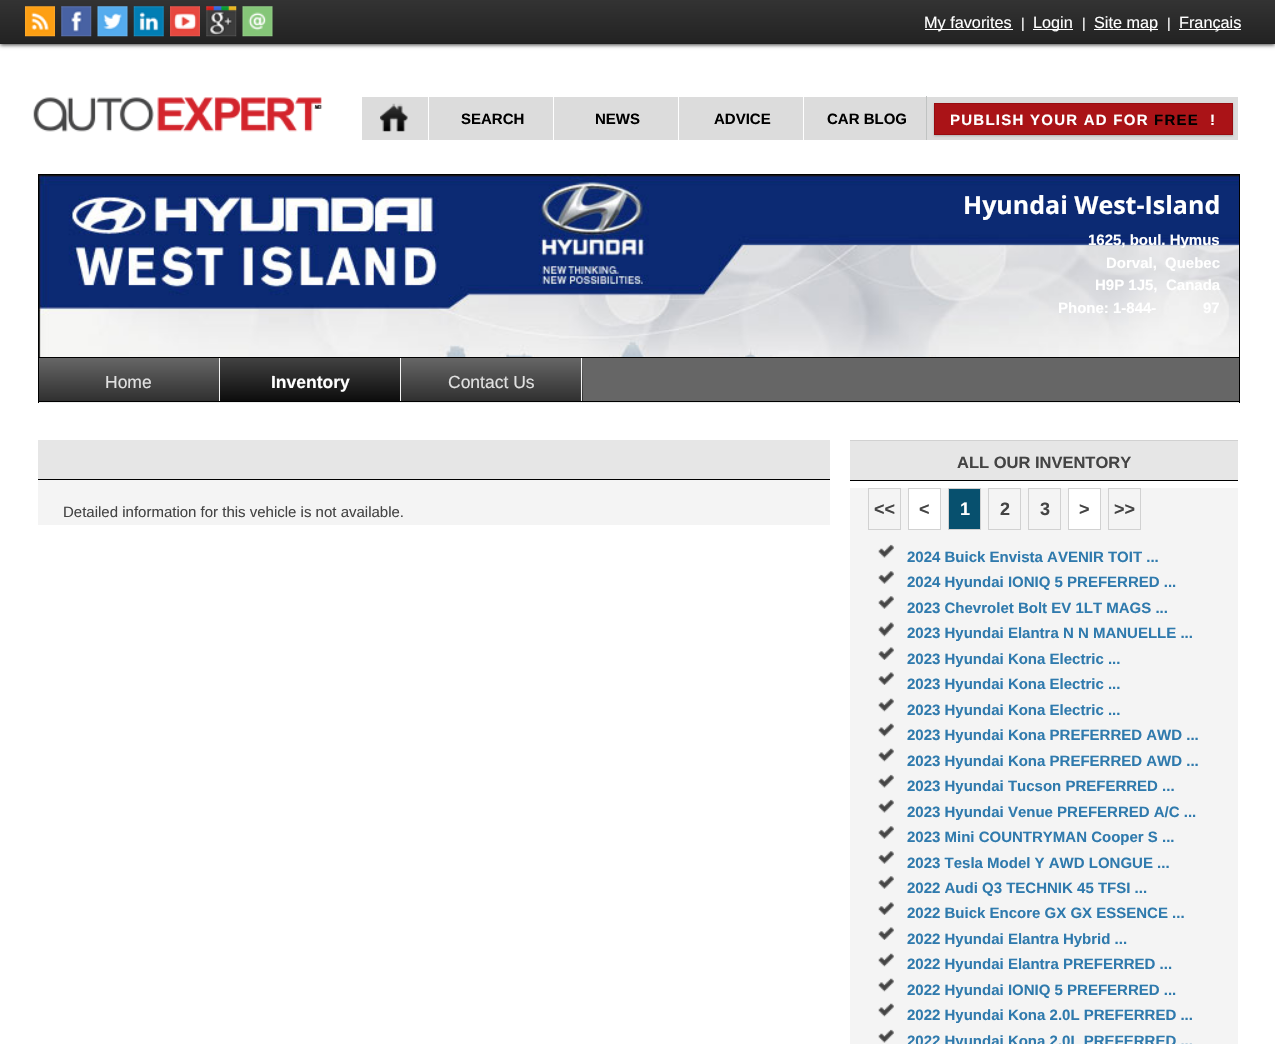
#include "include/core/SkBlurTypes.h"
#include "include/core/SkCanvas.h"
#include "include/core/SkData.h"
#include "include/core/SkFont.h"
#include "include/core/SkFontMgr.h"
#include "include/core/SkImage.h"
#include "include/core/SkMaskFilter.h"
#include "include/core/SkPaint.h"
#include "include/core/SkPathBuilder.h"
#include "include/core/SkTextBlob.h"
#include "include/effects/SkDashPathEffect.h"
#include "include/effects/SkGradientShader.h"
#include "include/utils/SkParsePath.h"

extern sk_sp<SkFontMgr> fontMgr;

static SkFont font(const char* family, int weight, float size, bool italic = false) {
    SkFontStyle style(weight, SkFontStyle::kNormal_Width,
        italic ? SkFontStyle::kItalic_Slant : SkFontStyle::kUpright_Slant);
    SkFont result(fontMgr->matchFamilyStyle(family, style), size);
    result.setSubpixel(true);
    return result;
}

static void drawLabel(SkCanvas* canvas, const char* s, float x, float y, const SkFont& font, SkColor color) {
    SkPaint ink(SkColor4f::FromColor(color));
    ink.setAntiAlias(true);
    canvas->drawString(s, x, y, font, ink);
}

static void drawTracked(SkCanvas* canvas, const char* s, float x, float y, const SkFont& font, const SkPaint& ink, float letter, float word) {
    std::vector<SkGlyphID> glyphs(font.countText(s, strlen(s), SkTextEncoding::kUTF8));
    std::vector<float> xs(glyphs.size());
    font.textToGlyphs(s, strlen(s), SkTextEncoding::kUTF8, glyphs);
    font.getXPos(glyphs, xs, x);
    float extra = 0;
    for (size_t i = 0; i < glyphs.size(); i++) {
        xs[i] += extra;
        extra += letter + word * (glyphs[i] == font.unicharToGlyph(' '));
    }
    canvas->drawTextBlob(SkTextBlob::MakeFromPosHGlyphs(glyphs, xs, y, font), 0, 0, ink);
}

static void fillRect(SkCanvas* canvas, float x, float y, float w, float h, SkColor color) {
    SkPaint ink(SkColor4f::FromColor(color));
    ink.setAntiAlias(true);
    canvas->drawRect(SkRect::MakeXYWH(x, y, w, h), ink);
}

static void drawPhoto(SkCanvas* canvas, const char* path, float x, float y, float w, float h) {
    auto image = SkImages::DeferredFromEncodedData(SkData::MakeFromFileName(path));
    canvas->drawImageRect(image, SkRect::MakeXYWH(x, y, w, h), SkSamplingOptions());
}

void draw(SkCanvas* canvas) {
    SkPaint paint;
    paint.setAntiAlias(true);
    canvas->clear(0xFFFFFFFF);
    paint.setColor(0xBF000000);
    paint.setMaskFilter(SkMaskFilter::MakeBlur(kNormal_SkBlurStyle, 2));
    canvas->drawRect(SkRect::MakeXYWH(0, 1, 1275, 44), paint);
    paint.setMaskFilter(nullptr);
    {
        const SkColor colors[] = {0xFF333333, 0xFF222222};
        const float stops[] = {0, 1};
        const SkPoint ends[] = {{638, 0}, {638, 44}};
        paint.setShader(SkGradientShader::MakeLinear(ends, colors, stops, 2, SkTileMode::kClamp));
        paint.setAlpha(255);
    }
    canvas->drawRect(SkRect::MakeXYWH(0, 0, 1275, 43), paint);
    fillRect(canvas, 0, 43, 1275, 1, 0xFF1F1F1F);
    drawPhoto(canvas, "assets/img1.png", 25, 6, 30, 31);
    drawPhoto(canvas, "assets/img2.png", 61, 6, 31, 31);
    drawPhoto(canvas, "assets/img3.png", 97, 6, 31, 31);
    drawPhoto(canvas, "assets/img4.png", 133, 6, 31, 31);
    drawPhoto(canvas, "assets/img5.png", 170, 6, 30, 31);
    drawPhoto(canvas, "assets/img6.png", 206, 6, 31, 31);
    drawPhoto(canvas, "assets/img7.png", 242, 6, 31, 31);
    fillRect(canvas, 925, 29, 88, 1, 0xFFFFFFFF);
    SkFont font1 = font("Liberation Sans", 400, 16.25f);
    drawLabel(canvas, "My favorites", 924, 28, font1, 0xFFFFFFFF);
    SkFont font2 = font("Liberation Sans", 400, 14);
    drawLabel(canvas, "|", 1021, 28, font2, 0xFFFFFFFF);
    fillRect(canvas, 1033, 29, 40, 1, 0xFFFFFFFF);
    drawLabel(canvas, "Login", 1033, 28, font1, 0xFFFFFFFF);
    drawLabel(canvas, "|", 1082, 28, font2, 0xFFFFFFFF);
    fillRect(canvas, 1094, 29, 64, 1, 0xFFFFFFFF);
    drawLabel(canvas, "Site map", 1094, 28, font1, 0xFFFFFFFF);
    drawLabel(canvas, "|", 1167, 28, font2, 0xFFFFFFFF);
    fillRect(canvas, 1179, 29, 62, 1, 0xFFFFFFFF);
    drawLabel(canvas, "Français", 1179, 28, font1, 0xFFFFFFFF);
    drawPhoto(canvas, "assets/img8.png", 33, 97, 290, 35);
    fillRect(canvas, 362, 97, 876, 43, 0xFFDCDCDC);
    drawPhoto(canvas, "assets/img9.png", 380, 103, 28, 29);
    fillRect(canvas, 428, 96, 1, 44, 0xFFFFFFFF);
    SkFont font3 = font("Liberation Sans", 700, 15);
    drawLabel(canvas, "SEARCH", 461, 124, font3, 0xFF000000);
    fillRect(canvas, 553, 96, 1, 44, 0xFFFFFFFF);
    drawLabel(canvas, "NEWS", 595, 124, font3, 0xFF000000);
    fillRect(canvas, 678, 96, 1, 44, 0xFFFFFFFF);
    drawLabel(canvas, "ADVICE", 714, 124, font3, 0xFF000000);
    fillRect(canvas, 926, 96, 1, 44, 0xFFC0C3C2);
    fillRect(canvas, 803, 96, 1, 44, 0xFFFFFFFF);
    drawLabel(canvas, "CAR BLOG", 827, 124, font3, 0xFF000000);
    paint.setShader(nullptr);
    paint.setColor(0x33000000);
    paint.setMaskFilter(SkMaskFilter::MakeBlur(kNormal_SkBlurStyle, 1));
    canvas->drawRect(SkRect::MakeXYWH(934, 104, 299, 32), paint);
    paint.setMaskFilter(nullptr);
    paint.setColor(0xFFAA1317);
    canvas->drawRect(SkRect::MakeXYWH(934.5f, 103.5f, 298, 31), paint);
    paint.setStroke(true);
    paint.setStrokeWidth(1);
    paint.setColor(0xFF980C10);
    canvas->drawRect(SkRect::MakeXYWH(934.5f, 103.5f, 298, 31), paint);
    paint.setStroke(false);
    paint.setColor(0xFFFFFFFF);
    drawTracked(canvas, "PUBLISH YOUR AD FOR", 950, 125, font3, paint, 1.25f, 0);
    paint.setColor(0xFF000000);
    drawTracked(canvas, "FREE", 1154, 125, font3, paint, 1.25f, 0);
    paint.setColor(0xFFFFFFFF);
    drawTracked(canvas, "!", 1210, 125, font3, paint, 1.25f, 0);
    drawPhoto(canvas, "assets/img10.png", 39, 175, 1200, 182);
    paint.setStroke(true);
    paint.setColor(0xFF000000);
    canvas->drawRect(SkRect::MakeXYWH(38.5f, 174.5f, 1201, 183), paint);
    SkFont font4 = font("Open Sans", 700, 25);
    drawLabel(canvas, "Hyundai West-Island", 963, 214, font4, 0xFFFFFFFF);
    drawLabel(canvas, "1625, boul. Hymus", 1088, 245, font3, 0xFFFFFFFF);
    drawLabel(canvas, "Dorval,", 1106, 268, font3, 0xFFFFFFFF);
    drawLabel(canvas, "Quebec", 1165, 268, font3, 0xFFFFFFFF);
    drawLabel(canvas, "H9P 1J5,", 1095, 290, font3, 0xFFFFFFFF);
    drawLabel(canvas, "Canada", 1166, 290, font3, 0xFFFFFFFF);
    drawLabel(canvas, "Phone: 1-844-", 1058, 313, font3, 0xFFFFFFFF);
    drawLabel(canvas, "97", 1203, 313, font3, 0xFFFFFFFF);
    fillRect(canvas, 39, 402, 1200, 1, 0xFFEBEDEC);
    fillRect(canvas, 1239, 358, 1, 45, 0xFF000000);
    fillRect(canvas, 38, 401, 1202, 1, 0xFF000000);
    fillRect(canvas, 38, 358, 1, 45, 0xFF000000);
    fillRect(canvas, 583, 358, 656, 43, 0xFF666666);
    paint.setStroke(false);
    {
        const SkColor colors[] = {0xFF666666, 0xFF000000};
        const float stops[] = {0, 1};
        const SkPoint ends[] = {{39, 358}, {39, 439}};
        paint.setShader(SkGradientShader::MakeLinear(ends, colors, stops, 2, SkTileMode::kClamp));
        paint.setAlpha(255);
    }
    canvas->drawRect(SkRect::MakeXYWH(39, 358, 180, 43), paint);
    fillRect(canvas, 219, 358, 1, 43, 0xFFF3F3F3);
    SkFont font5 = font("Liberation Sans", 400, 17.5f);
    drawLabel(canvas, "Home", 105, 388, font5, 0xFFE0E0E0);
    {
        const SkColor colors[] = {0xFF666666, 0xFF000000};
        const float stops[] = {0, 1};
        const SkPoint ends[] = {{264, 329}, {264, 411}};
        paint.setShader(SkGradientShader::MakeLinear(ends, colors, stops, 2, SkTileMode::kClamp));
        paint.setAlpha(255);
    }
    canvas->drawRect(SkRect::MakeXYWH(220, 358, 180, 43), paint);
    fillRect(canvas, 400, 358, 1, 43, 0xFFF3F3F3);
    SkFont font6 = font("Liberation Sans", 700, 17.5f);
    drawLabel(canvas, "Inventory", 271, 388, font6, 0xFFFFFFFF);
    {
        const SkColor colors[] = {0xFF666666, 0xFF000000};
        const float stops[] = {0, 1};
        const SkPoint ends[] = {{402, 358}, {402, 439}};
        paint.setShader(SkGradientShader::MakeLinear(ends, colors, stops, 2, SkTileMode::kClamp));
        paint.setAlpha(255);
    }
    canvas->drawRect(SkRect::MakeXYWH(401, 358, 182, 43), paint);
    fillRect(canvas, 581, 358, 1, 43, 0xFFF3F3F3);
    drawLabel(canvas, "Contact Us", 448, 388, font5, 0xFFE0E0E0);
    fillRect(canvas, 38, 440, 792, 39, 0xFFE6E6E6);
    fillRect(canvas, 38, 479, 792, 1, 0xFF000000);
    fillRect(canvas, 38, 480, 792, 45, 0xFFF4F4F4);
    SkFont font7 = font("Liberation Sans", 400, 15);
    drawLabel(canvas, "Detailed information for this vehicle is not available.", 63, 517, font7, 0xFF444444);
    fillRect(canvas, 850, 441, 388, 39, 0xFFE6E6E6);
    fillRect(canvas, 850, 440, 388, 1, 0xFFD1D1D1);
    fillRect(canvas, 850, 480, 388, 1, 0xFF000000);
    SkFont font8 = font("Liberation Sans", 700, 16.5f);
    drawLabel(canvas, "ALL OUR INVENTORY", 957, 468, font8, 0xFF444444);
    fillRect(canvas, 850, 488, 388, 556, 0xFFF4F4F4);
    paint.setStroke(true);
    paint.setShader(nullptr);
    paint.setColor(0xFFD1D1D1);
    canvas->drawRect(SkRect::MakeXYWH(868.5f, 488.5f, 32, 41), paint);
    SkFont font9 = font("Liberation Sans", 700, 18);
    drawLabel(canvas, "<<", 874, 515, font9, 0xFF444444);
    paint.setStroke(false);
    paint.setColor(0xFFFFFFFF);
    canvas->drawRect(SkRect::MakeXYWH(908.5f, 488.5f, 32, 41), paint);
    paint.setStroke(true);
    paint.setColor(0xFFD1D1D1);
    canvas->drawRect(SkRect::MakeXYWH(908.5f, 488.5f, 32, 41), paint);
    drawLabel(canvas, "<", 919, 515, font9, 0xFF444444);
    paint.setStroke(false);
    paint.setColor(0xFF07506E);
    canvas->drawRect(SkRect::MakeXYWH(948.5f, 488.5f, 32, 41), paint);
    paint.setStroke(true);
    paint.setColor(0xFFD1D1D1);
    canvas->drawRect(SkRect::MakeXYWH(948.5f, 488.5f, 32, 41), paint);
    drawLabel(canvas, "1", 960, 515, font9, 0xFFFFFFFF);
    canvas->drawRect(SkRect::MakeXYWH(988.5f, 488.5f, 32, 41), paint);
    drawLabel(canvas, "2", 1000, 515, font9, 0xFF444444);
    canvas->drawRect(SkRect::MakeXYWH(1028.5f, 488.5f, 32, 41), paint);
    drawLabel(canvas, "3", 1040, 515, font9, 0xFF444444);
    paint.setStroke(false);
    paint.setColor(0xFFFFFFFF);
    canvas->drawRect(SkRect::MakeXYWH(1068.5f, 488.5f, 32, 41), paint);
    paint.setStroke(true);
    paint.setColor(0xFFD1D1D1);
    canvas->drawRect(SkRect::MakeXYWH(1068.5f, 488.5f, 32, 41), paint);
    drawLabel(canvas, ">", 1079, 515, font9, 0xFF444444);
    canvas->drawRect(SkRect::MakeXYWH(1108.5f, 488.5f, 32, 41), paint);
    drawLabel(canvas, ">>", 1114, 515, font9, 0xFF444444);
    drawPhoto(canvas, "assets/img11.png", 878, 544, 16, 14);
    drawLabel(canvas, "2024 Buick Envista AVENIR TOIT ...", 907, 562, font3, 0xFF2F7AAD);
    drawPhoto(canvas, "assets/img12.png", 878, 571, 16, 13);
    drawLabel(canvas, "2024 Hyundai IONIQ 5 PREFERRED ...", 907, 587, font3, 0xFF2F7AAD);
    drawPhoto(canvas, "assets/img12.png", 878, 596, 16, 13);
    drawLabel(canvas, "2023 Chevrolet Bolt EV 1LT MAGS ...", 907, 613, font3, 0xFF2F7AAD);
    drawPhoto(canvas, "assets/img13.png", 878, 622, 16, 15);
    drawLabel(canvas, "2023 Hyundai Elantra N N MANUELLE ...", 907, 638, font3, 0xFF2F7AAD);
    drawPhoto(canvas, "assets/img14.png", 878, 647, 16, 13);
    drawLabel(canvas, "2023 Hyundai Kona Electric ...", 907, 664, font3, 0xFF2F7AAD);
    drawPhoto(canvas, "assets/img14.png", 878, 672, 16, 13);
    drawLabel(canvas, "2023 Hyundai Kona Electric ...", 907, 689, font3, 0xFF2F7AAD);
    drawPhoto(canvas, "assets/img15.png", 878, 698, 16, 14);
    drawLabel(canvas, "2023 Hyundai Kona Electric ...", 907, 715, font3, 0xFF2F7AAD);
    drawPhoto(canvas, "assets/img15.png", 878, 723, 16, 14);
    drawLabel(canvas, "2023 Hyundai Kona PREFERRED AWD ...", 907, 740, font3, 0xFF2F7AAD);
    drawPhoto(canvas, "assets/img15.png", 878, 748, 16, 14);
    drawLabel(canvas, "2023 Hyundai Kona PREFERRED AWD ...", 907, 766, font3, 0xFF2F7AAD);
    drawPhoto(canvas, "assets/img16.png", 878, 774, 16, 14);
    drawLabel(canvas, "2023 Hyundai Tucson PREFERRED ...", 907, 791, font3, 0xFF2F7AAD);
    drawPhoto(canvas, "assets/img11.png", 878, 799, 16, 14);
    drawLabel(canvas, "2023 Hyundai Venue PREFERRED A/C ...", 907, 817, font3, 0xFF2F7AAD);
    drawPhoto(canvas, "assets/img12.png", 878, 826, 16, 13);
    drawLabel(canvas, "2023 Mini COUNTRYMAN Cooper S ...", 907, 842, font3, 0xFF2F7AAD);
    drawPhoto(canvas, "assets/img12.png", 878, 851, 16, 13);
    drawLabel(canvas, "2023 Tesla Model Y AWD LONGUE ...", 907, 868, font3, 0xFF2F7AAD);
    drawPhoto(canvas, "assets/img12.png", 878, 876, 16, 13);
    drawLabel(canvas, "2022 Audi Q3 TECHNIK 45 TFSI ...", 907, 893, font3, 0xFF2F7AAD);
    drawPhoto(canvas, "assets/img14.png", 878, 902, 16, 13);
    drawLabel(canvas, "2022 Buick Encore GX GX ESSENCE ...", 907, 918, font3, 0xFF2F7AAD);
    drawPhoto(canvas, "assets/img14.png", 878, 927, 16, 13);
    drawLabel(canvas, "2022 Hyundai Elantra Hybrid ...", 907, 944, font3, 0xFF2F7AAD);
    drawPhoto(canvas, "assets/img15.png", 878, 953, 16, 14);
    drawLabel(canvas, "2022 Hyundai Elantra PREFERRED ...", 907, 969, font3, 0xFF2F7AAD);
    drawPhoto(canvas, "assets/img15.png", 878, 978, 16, 14);
    drawLabel(canvas, "2022 Hyundai IONIQ 5 PREFERRED ...", 907, 995, font3, 0xFF2F7AAD);
    drawPhoto(canvas, "assets/img15.png", 878, 1003, 16, 14);
    drawLabel(canvas, "2022 Hyundai Kona 2.0L PREFERRED ...", 907, 1020, font3, 0xFF2F7AAD);
    drawPhoto(canvas, "assets/img11.png", 878, 1029, 16, 14);
    drawLabel(canvas, "2022 Hyundai Kona 2.0L PREFERRED ...", 907, 1046, font3, 0xFF2F7AAD);
}
